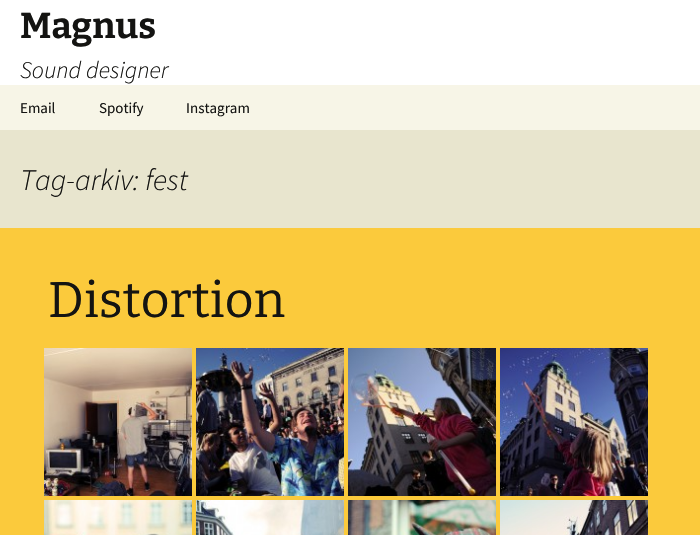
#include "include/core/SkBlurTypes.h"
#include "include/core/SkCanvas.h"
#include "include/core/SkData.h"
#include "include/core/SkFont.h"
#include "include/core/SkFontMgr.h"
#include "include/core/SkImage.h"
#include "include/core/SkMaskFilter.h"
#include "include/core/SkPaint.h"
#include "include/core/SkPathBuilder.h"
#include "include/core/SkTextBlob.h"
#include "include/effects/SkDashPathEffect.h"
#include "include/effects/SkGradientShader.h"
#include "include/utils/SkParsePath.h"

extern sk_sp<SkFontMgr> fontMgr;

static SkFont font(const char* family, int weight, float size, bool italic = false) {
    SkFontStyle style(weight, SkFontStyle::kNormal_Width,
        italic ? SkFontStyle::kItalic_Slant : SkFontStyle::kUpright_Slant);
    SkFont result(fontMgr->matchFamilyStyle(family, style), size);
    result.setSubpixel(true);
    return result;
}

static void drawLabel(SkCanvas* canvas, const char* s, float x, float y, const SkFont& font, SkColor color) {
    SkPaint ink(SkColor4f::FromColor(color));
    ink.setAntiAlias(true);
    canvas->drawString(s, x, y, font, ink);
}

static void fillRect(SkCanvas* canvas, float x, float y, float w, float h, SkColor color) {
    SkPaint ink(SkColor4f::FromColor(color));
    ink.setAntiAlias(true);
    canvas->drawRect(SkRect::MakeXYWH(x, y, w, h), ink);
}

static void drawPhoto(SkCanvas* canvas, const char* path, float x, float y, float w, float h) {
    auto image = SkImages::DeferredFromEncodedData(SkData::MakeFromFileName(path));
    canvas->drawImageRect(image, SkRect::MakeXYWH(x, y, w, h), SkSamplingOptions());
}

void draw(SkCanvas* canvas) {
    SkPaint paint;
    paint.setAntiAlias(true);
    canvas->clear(0xFFFFFFFF);
    SkFont font1 = font("Bitter", 700, 36);
    drawLabel(canvas, "Magnus", 20, 38, font1, 0xFF141412);
    SkFont font2 = font("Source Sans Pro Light", 300, 24, true);
    drawLabel(canvas, "Sound designer", 20, 78, font2, 0xFF141412);
    fillRect(canvas, 0, 85, 700, 45, 0xFFF7F5E7);
    SkFont font3 = font("Source Sans Pro", 400, 15);
    drawLabel(canvas, "Email", 20, 113, font3, 0xFF141412);
    drawLabel(canvas, "Spotify", 99, 113, font3, 0xFF141412);
    drawLabel(canvas, "Instagram", 186, 113, font3, 0xFF141412);
    fillRect(canvas, 0, 130, 700, 98, 0xFFE8E5CE);
    SkFont font4 = font("Source Sans Pro Light", 300, 30, true);
    drawLabel(canvas, "Tag-arkiv: fest", 20, 190, font4, 0xFF141412);
    fillRect(canvas, 0, 228, 700, 307, 0xFFFBCA3C);
    SkFont font5 = font("Bitter", 400, 50);
    drawLabel(canvas, "Distortion", 48, 317, font5, 0xFF141412);
    drawPhoto(canvas, "assets/img1.png", 44, 348, 148, 148);
    drawPhoto(canvas, "assets/img2.png", 196, 348, 148, 148);
    drawPhoto(canvas, "assets/img3.png", 348, 348, 148, 148);
    drawPhoto(canvas, "assets/img4.png", 500, 348, 148, 148);
    drawPhoto(canvas, "assets/img5.png", 44, 500, 148, 35);
    drawPhoto(canvas, "assets/img6.png", 196, 500, 148, 35);
    drawPhoto(canvas, "assets/img7.png", 348, 500, 148, 35);
    drawPhoto(canvas, "assets/img8.png", 500, 500, 148, 35);
}
